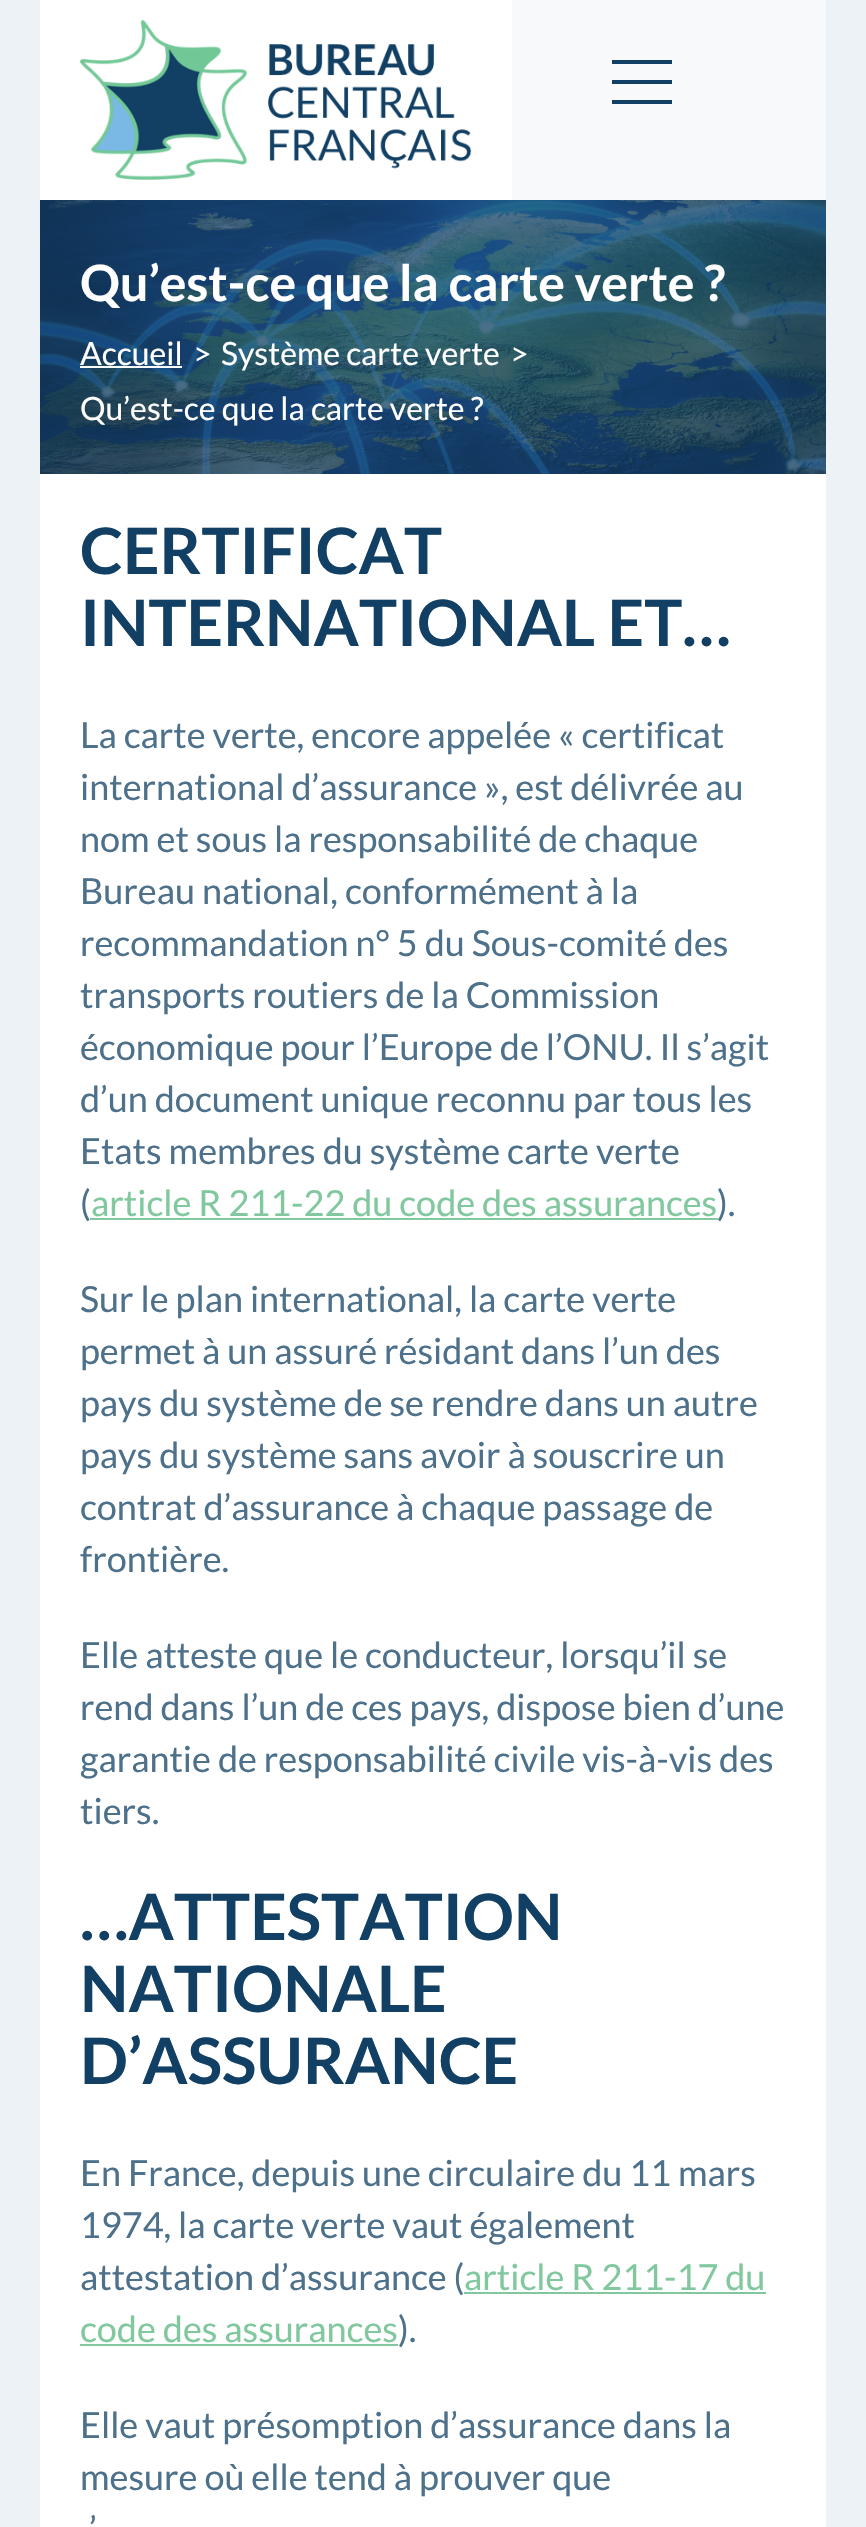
#include "include/core/SkBlurTypes.h"
#include "include/core/SkCanvas.h"
#include "include/core/SkData.h"
#include "include/core/SkFont.h"
#include "include/core/SkFontMgr.h"
#include "include/core/SkImage.h"
#include "include/core/SkMaskFilter.h"
#include "include/core/SkPaint.h"
#include "include/core/SkPathBuilder.h"
#include "include/core/SkTextBlob.h"
#include "include/effects/SkDashPathEffect.h"
#include "include/effects/SkGradientShader.h"
#include "include/utils/SkParsePath.h"

extern sk_sp<SkFontMgr> fontMgr;

static SkFont font(const char* family, int weight, float size, bool italic = false) {
    SkFontStyle style(weight, SkFontStyle::kNormal_Width,
        italic ? SkFontStyle::kItalic_Slant : SkFontStyle::kUpright_Slant);
    SkFont result(fontMgr->matchFamilyStyle(family, style), size);
    result.setSubpixel(true);
    return result;
}

static void drawLabel(SkCanvas* canvas, const char* s, float x, float y, const SkFont& font, SkColor color) {
    SkPaint ink(SkColor4f::FromColor(color));
    ink.setAntiAlias(true);
    canvas->drawString(s, x, y, font, ink);
}

static void fillRect(SkCanvas* canvas, float x, float y, float w, float h, SkColor color) {
    SkPaint ink(SkColor4f::FromColor(color));
    ink.setAntiAlias(true);
    canvas->drawRect(SkRect::MakeXYWH(x, y, w, h), ink);
}

static void drawPhoto(SkCanvas* canvas, const char* path, float x, float y, float w, float h) {
    auto image = SkImages::DeferredFromEncodedData(SkData::MakeFromFileName(path));
    canvas->drawImageRect(image, SkRect::MakeXYWH(x, y, w, h), SkSamplingOptions());
}

void draw(SkCanvas* canvas) {
    SkPaint paint;
    paint.setAntiAlias(true);
    canvas->clear(0xFFEDF2F6);
    fillRect(canvas, 40, 0, 472, 200, 0xFFFFFFFF);
    drawPhoto(canvas, "assets/img1.png", 80, 20, 392, 160);
    fillRect(canvas, 512, 0, 314, 200, 0xFFF7F9FB);
    fillRect(canvas, 612, 80, 60, 4, 0xFF124064);
    fillRect(canvas, 612, 60, 60, 4, 0xFF124064);
    fillRect(canvas, 612, 100, 60, 4, 0xFF124064);
    drawPhoto(canvas, "assets/img2.png", 40, 200, 786, 274);
    SkFont font1 = font("Lato", 700, 50);
    drawLabel(canvas, "Qu’est-ce que la carte verte ?", 80, 301, font1, 0xFFFFFFFF);
    SkFont font2 = font("Lato", 400, 32);
    drawLabel(canvas, "Accueil", 80, 365, font2, 0xFFFFFFFF);
    fillRect(canvas, 80, 366, 102, 2, 0xFFFFFFFF);
    drawLabel(canvas, ">", 193, 365, font2, 0xFFFFFFFF);
    drawLabel(canvas, "Système carte verte", 221, 365, font2, 0xFFFFFFFF);
    drawLabel(canvas, ">", 510, 365, font2, 0xFFFFFFFF);
    drawLabel(canvas, "Qu’est-ce que la carte verte ?", 80, 420, font2, 0xFFFFFFFF);
    fillRect(canvas, 40, 474, 786, 2053, 0xFFFFFFFF);
    SkFont font3 = font("Lato", 700, 64);
    drawLabel(canvas, "CERTIFICAT", 80, 574, font3, 0xFF124064);
    drawLabel(canvas, "INTERNATIONAL ET…", 80, 646, font3, 0xFF124064);
    SkFont font4 = font("Lato", 400, 36);
    drawLabel(canvas, "La carte verte, encore appelée « certificat", 80, 748, font4, 0xFF4D708B);
    drawLabel(canvas, "international d’assurance », est délivrée au", 80, 800, font4, 0xFF4D708B);
    drawLabel(canvas, "nom et sous la responsabilité de chaque", 80, 852, font4, 0xFF4D708B);
    drawLabel(canvas, "Bureau national, conformément à la", 80, 904, font4, 0xFF4D708B);
    drawLabel(canvas, "recommandation n° 5 du Sous-comité des", 80, 956, font4, 0xFF4D708B);
    drawLabel(canvas, "transports routiers de la Commission", 80, 1008, font4, 0xFF4D708B);
    drawLabel(canvas, "économique pour l’Europe de l’ONU. Il s’agit", 80, 1060, font4, 0xFF4D708B);
    drawLabel(canvas, "d’un document unique reconnu par tous les", 80, 1112, font4, 0xFF4D708B);
    drawLabel(canvas, "Etats membres du système carte verte", 80, 1164, font4, 0xFF4D708B);
    drawLabel(canvas, "(", 80, 1216, font4, 0xFF4D708B);
    drawLabel(canvas, "article R 211-22 du code des assurances", 91, 1216, font4, 0xFF81C89F);
    fillRect(canvas, 90, 1218, 628, 2, 0xFF81C89F);
    drawLabel(canvas, ").", 717, 1216, font4, 0xFF4D708B);
    drawLabel(canvas, "Sur le plan international, la carte verte", 80, 1312, font4, 0xFF4D708B);
    drawLabel(canvas, "permet à un assuré résidant dans l’un des", 80, 1364, font4, 0xFF4D708B);
    drawLabel(canvas, "pays du système de se rendre dans un autre", 80, 1416, font4, 0xFF4D708B);
    drawLabel(canvas, "pays du système sans avoir à souscrire un", 80, 1468, font4, 0xFF4D708B);
    drawLabel(canvas, "contrat d’assurance à chaque passage de", 80, 1520, font4, 0xFF4D708B);
    drawLabel(canvas, "frontière.", 80, 1572, font4, 0xFF4D708B);
    drawLabel(canvas, "Elle atteste que le conducteur, lorsqu’il se", 80, 1668, font4, 0xFF4D708B);
    drawLabel(canvas, "rend dans l’un de ces pays, dispose bien d’une", 80, 1720, font4, 0xFF4D708B);
    drawLabel(canvas, "garantie de responsabilité civile vis-à-vis des", 80, 1772, font4, 0xFF4D708B);
    drawLabel(canvas, "tiers.", 80, 1824, font4, 0xFF4D708B);
    drawLabel(canvas, "…ATTESTATION", 80, 1940, font3, 0xFF124064);
    drawLabel(canvas, "NATIONALE", 80, 2012, font3, 0xFF124064);
    drawLabel(canvas, "D’ASSURANCE", 80, 2084, font3, 0xFF124064);
    drawLabel(canvas, "En France, depuis une circulaire du 11 mars", 80, 2186, font4, 0xFF4D708B);
    drawLabel(canvas, "1974, la carte verte vaut également", 80, 2238, font4, 0xFF4D708B);
    drawLabel(canvas, "attestation d’assurance (", 80, 2290, font4, 0xFF4D708B);
    drawLabel(canvas, "article R 211-17 du", 464, 2290, font4, 0xFF81C89F);
    fillRect(canvas, 464, 2292, 302, 2, 0xFF81C89F);
    drawLabel(canvas, "code des assurances", 80, 2342, font4, 0xFF81C89F);
    fillRect(canvas, 80, 2344, 318, 2, 0xFF81C89F);
    drawLabel(canvas, ").", 398, 2342, font4, 0xFF4D708B);
    drawLabel(canvas, "Elle vaut présomption d’assurance dans la", 80, 2438, font4, 0xFF4D708B);
    drawLabel(canvas, "mesure où elle tend à prouver que", 80, 2490, font4, 0xFF4D708B);
    drawLabel(canvas, "’", 89, 2542, font4, 0xFF4D708B);
}
